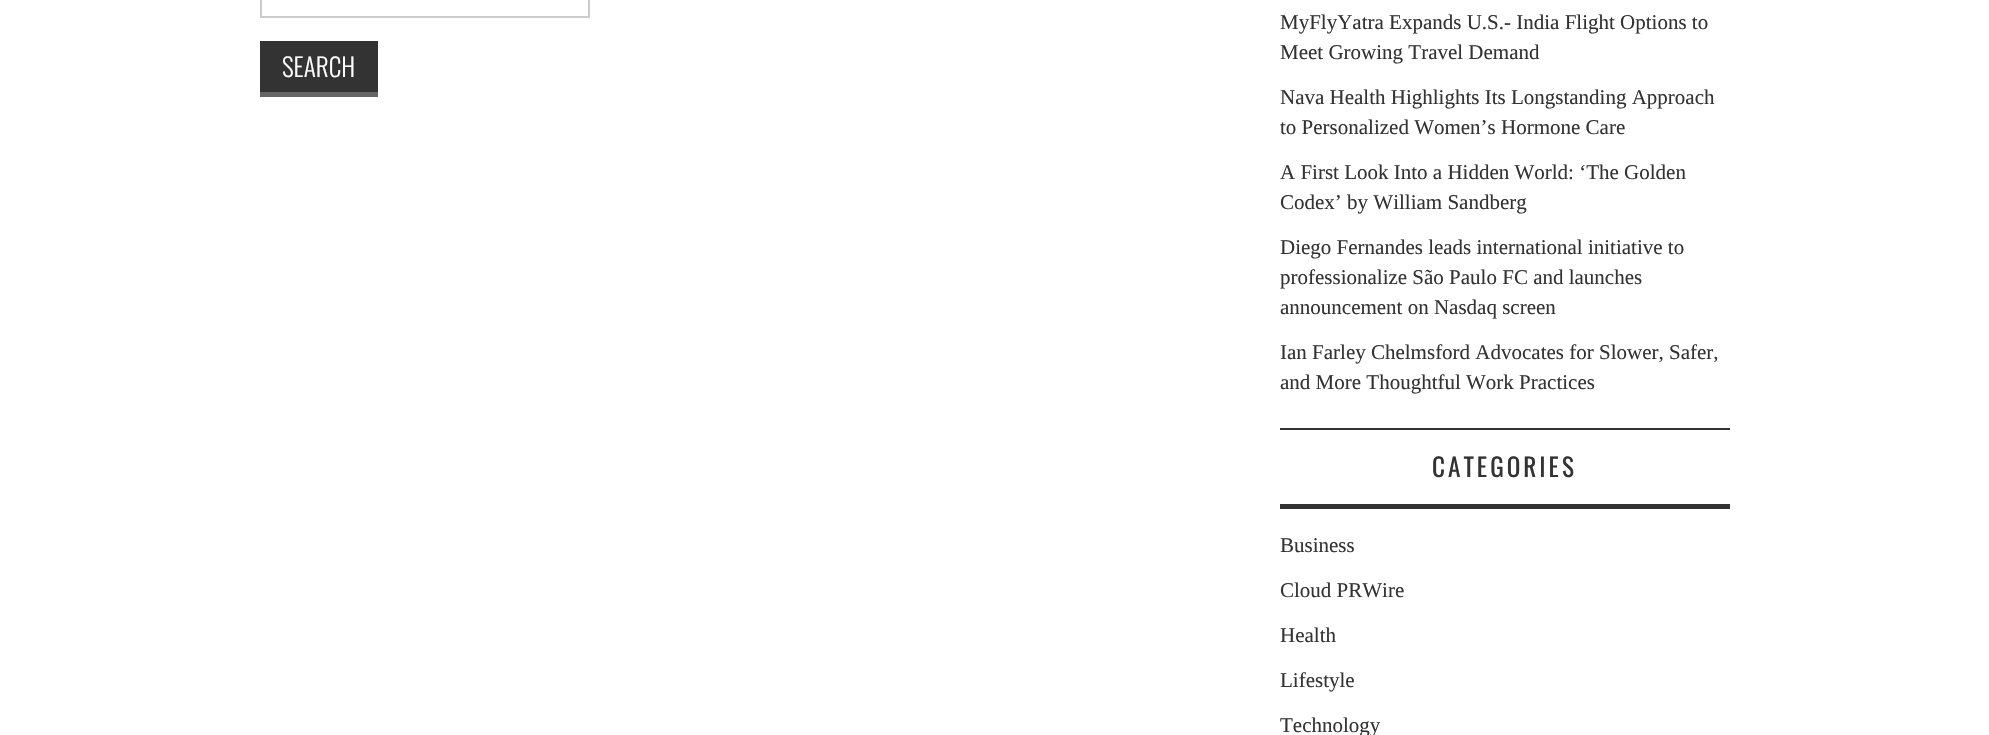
#include "include/core/SkBlurTypes.h"
#include "include/core/SkCanvas.h"
#include "include/core/SkData.h"
#include "include/core/SkFont.h"
#include "include/core/SkFontMgr.h"
#include "include/core/SkImage.h"
#include "include/core/SkMaskFilter.h"
#include "include/core/SkPaint.h"
#include "include/core/SkPathBuilder.h"
#include "include/core/SkTextBlob.h"
#include "include/effects/SkDashPathEffect.h"
#include "include/effects/SkGradientShader.h"
#include "include/utils/SkParsePath.h"

extern sk_sp<SkFontMgr> fontMgr;

static SkFont font(const char* family, int weight, float size, bool italic = false) {
    SkFontStyle style(weight, SkFontStyle::kNormal_Width,
        italic ? SkFontStyle::kItalic_Slant : SkFontStyle::kUpright_Slant);
    SkFont result(fontMgr->matchFamilyStyle(family, style), size);
    result.setSubpixel(true);
    return result;
}

static void drawLabel(SkCanvas* canvas, const char* s, float x, float y, const SkFont& font, SkColor color) {
    SkPaint ink(SkColor4f::FromColor(color));
    ink.setAntiAlias(true);
    canvas->drawString(s, x, y, font, ink);
}

static void drawTracked(SkCanvas* canvas, const char* s, float x, float y, const SkFont& font, const SkPaint& ink, float letter, float word) {
    std::vector<SkGlyphID> glyphs(font.countText(s, strlen(s), SkTextEncoding::kUTF8));
    std::vector<float> xs(glyphs.size());
    font.textToGlyphs(s, strlen(s), SkTextEncoding::kUTF8, glyphs);
    font.getXPos(glyphs, xs, x);
    float extra = 0;
    for (size_t i = 0; i < glyphs.size(); i++) {
        xs[i] += extra;
        extra += letter + word * (glyphs[i] == font.unicharToGlyph(' '));
    }
    canvas->drawTextBlob(SkTextBlob::MakeFromPosHGlyphs(glyphs, xs, y, font), 0, 0, ink);
}

static void fillRect(SkCanvas* canvas, float x, float y, float w, float h, SkColor color) {
    SkPaint ink(SkColor4f::FromColor(color));
    ink.setAntiAlias(true);
    canvas->drawRect(SkRect::MakeXYWH(x, y, w, h), ink);
}

void draw(SkCanvas* canvas) {
    SkPaint paint;
    paint.setAntiAlias(true);
    canvas->clear(0xFFFFFFFF);
    paint.setStroke(true);
    paint.setStrokeWidth(2);
    paint.setColor(0xFFCCCCCC);
    canvas->drawRect(SkRect::MakeXYWH(261, -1, 328, 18), paint);
    fillRect(canvas, 260, 41, 118, 51, 0xFF333333);
    fillRect(canvas, 260, 92, 118, 5, 0xFF666666);
    SkFont font1 = font("Oswald", 300, 25.25f);
    drawLabel(canvas, "SEARCH", 282, 77, font1, 0xFFFFFFFF);
    fillRect(canvas, 1280, 428, 450, 2, 0xFF333333);
    SkFont font2 = font("Liberation Serif", 400, 21);
    drawLabel(canvas, "MyFlyYatra Expands U.S.- India Flight Options to", 1280, 29, font2, 0xFF333333);
    drawLabel(canvas, "Meet Growing Travel Demand", 1280, 59, font2, 0xFF333333);
    drawLabel(canvas, "Nava Health Highlights Its Longstanding Approach", 1280, 104, font2, 0xFF333333);
    drawLabel(canvas, "to Personalized Women’s Hormone Care", 1280, 134, font2, 0xFF333333);
    drawLabel(canvas, "A First Look Into a Hidden World: ‘The Golden", 1280, 179, font2, 0xFF333333);
    drawLabel(canvas, "Codex’ by William Sandberg", 1280, 209, font2, 0xFF333333);
    drawLabel(canvas, "Diego Fernandes leads international initiative to", 1280, 254, font2, 0xFF333333);
    drawLabel(canvas, "professionalize São Paulo FC and launches", 1280, 284, font2, 0xFF333333);
    drawLabel(canvas, "announcement on Nasdaq screen", 1280, 314, font2, 0xFF333333);
    drawLabel(canvas, "Ian Farley Chelmsford Advocates for Slower, Safer,", 1280, 359, font2, 0xFF333333);
    drawLabel(canvas, "and More Thoughtful Work Practices", 1280, 389, font2, 0xFF333333);
    fillRect(canvas, 1280, 504, 450, 5, 0xFF333333);
    SkFont font3 = font("Oswald", 400, 25.25f);
    paint.setStroke(false);
    paint.setColor(0xFF333333);
    drawTracked(canvas, "CATEGORIES", 1432, 477, font3, paint, 3, 0);
    drawLabel(canvas, "Business", 1280, 552, font2, 0xFF333333);
    drawLabel(canvas, "Cloud PRWire", 1280, 597, font2, 0xFF333333);
    drawLabel(canvas, "Health", 1280, 642, font2, 0xFF333333);
    drawLabel(canvas, "Lifestyle", 1280, 687, font2, 0xFF333333);
    drawLabel(canvas, "Technology", 1280, 732, font2, 0xFF333333);
}
